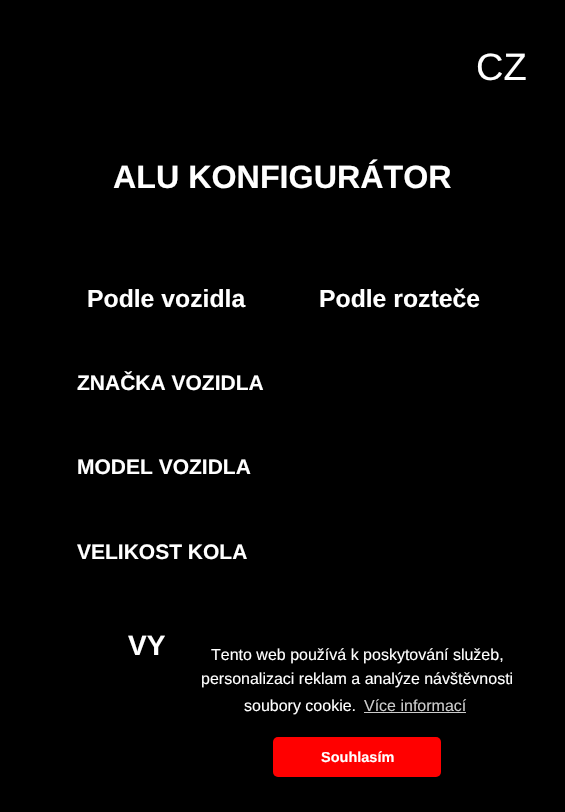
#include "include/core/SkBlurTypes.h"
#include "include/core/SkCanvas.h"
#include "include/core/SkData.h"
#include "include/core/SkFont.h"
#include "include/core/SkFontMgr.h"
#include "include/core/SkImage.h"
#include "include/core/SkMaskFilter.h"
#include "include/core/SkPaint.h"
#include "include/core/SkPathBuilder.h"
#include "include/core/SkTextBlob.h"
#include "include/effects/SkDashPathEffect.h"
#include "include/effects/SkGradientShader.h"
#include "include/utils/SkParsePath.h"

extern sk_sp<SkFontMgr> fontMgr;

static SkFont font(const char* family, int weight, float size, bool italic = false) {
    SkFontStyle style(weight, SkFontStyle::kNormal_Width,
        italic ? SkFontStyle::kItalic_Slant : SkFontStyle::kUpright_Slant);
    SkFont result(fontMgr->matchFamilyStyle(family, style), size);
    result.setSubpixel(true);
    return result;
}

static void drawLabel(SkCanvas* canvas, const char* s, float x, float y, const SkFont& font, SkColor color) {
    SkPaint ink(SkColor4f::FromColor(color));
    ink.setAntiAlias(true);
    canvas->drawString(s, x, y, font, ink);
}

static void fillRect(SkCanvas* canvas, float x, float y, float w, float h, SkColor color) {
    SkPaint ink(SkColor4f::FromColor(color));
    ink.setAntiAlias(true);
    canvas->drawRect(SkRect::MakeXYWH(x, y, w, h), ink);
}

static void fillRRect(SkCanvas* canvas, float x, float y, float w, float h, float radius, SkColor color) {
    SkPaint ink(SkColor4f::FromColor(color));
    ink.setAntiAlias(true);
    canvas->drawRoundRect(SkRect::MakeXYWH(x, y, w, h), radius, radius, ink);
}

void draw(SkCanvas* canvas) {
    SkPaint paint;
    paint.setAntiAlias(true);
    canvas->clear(0xFF000000);
    SkFont font1 = font("Liberation Sans", 400, 38);
    drawLabel(canvas, "CZ", 476, 80, font1, 0xFFFFFFFF);
    SkFont font2 = font("Liberation Sans", 700, 32.25f);
    drawLabel(canvas, "ALU KONFIGURÁTOR", 113, 188, font2, 0xFFFFFFFF);
    SkFont font3 = font("Liberation Sans", 700, 24.75f);
    drawLabel(canvas, "Podle vozidla", 87, 307, font3, 0xFFFFFFFF);
    drawLabel(canvas, "Podle rozteče", 319, 307, font3, 0xFFFFFFFF);
    SkFont font4 = font("Liberation Sans", 700, 21);
    drawLabel(canvas, "ZNAČKA VOZIDLA", 77, 390, font4, 0xFFFFFFFF);
    drawLabel(canvas, "MODEL VOZIDLA", 77, 474, font4, 0xFFFFFFFF);
    drawLabel(canvas, "VELIKOST KOLA", 77, 559, font4, 0xFFFFFFFF);
    SkFont font5 = font("Liberation Sans", 700, 28);
    drawLabel(canvas, "VY", 128, 655, font5, 0xFFFFFFFF);
    fillRRect(canvas, 165, 624, 384, 172, 5, 0xFF000000);
    SkFont font6 = font("Liberation Sans", 400, 16);
    drawLabel(canvas, "Tento web používá k poskytování služeb,", 211, 660, font6, 0xFFFFFFFF);
    drawLabel(canvas, "personalizaci reklam a analýze návštěvnosti", 201, 684, font6, 0xFFFFFFFF);
    drawLabel(canvas, "soubory cookie.", 244, 711, font6, 0xFFFFFFFF);
    drawLabel(canvas, "Více informací", 364, 711, font6, 0xFFCCCCCC);
    fillRect(canvas, 364, 712, 102, 1, 0xFFCCCCCC);
    fillRRect(canvas, 273, 737, 168, 40, 5, 0xFFFF0000);
    SkFont font7 = font("Liberation Sans", 700, 14.5f);
    drawLabel(canvas, "Souhlasím", 321, 762, font7, 0xFFFFFFFF);
}
